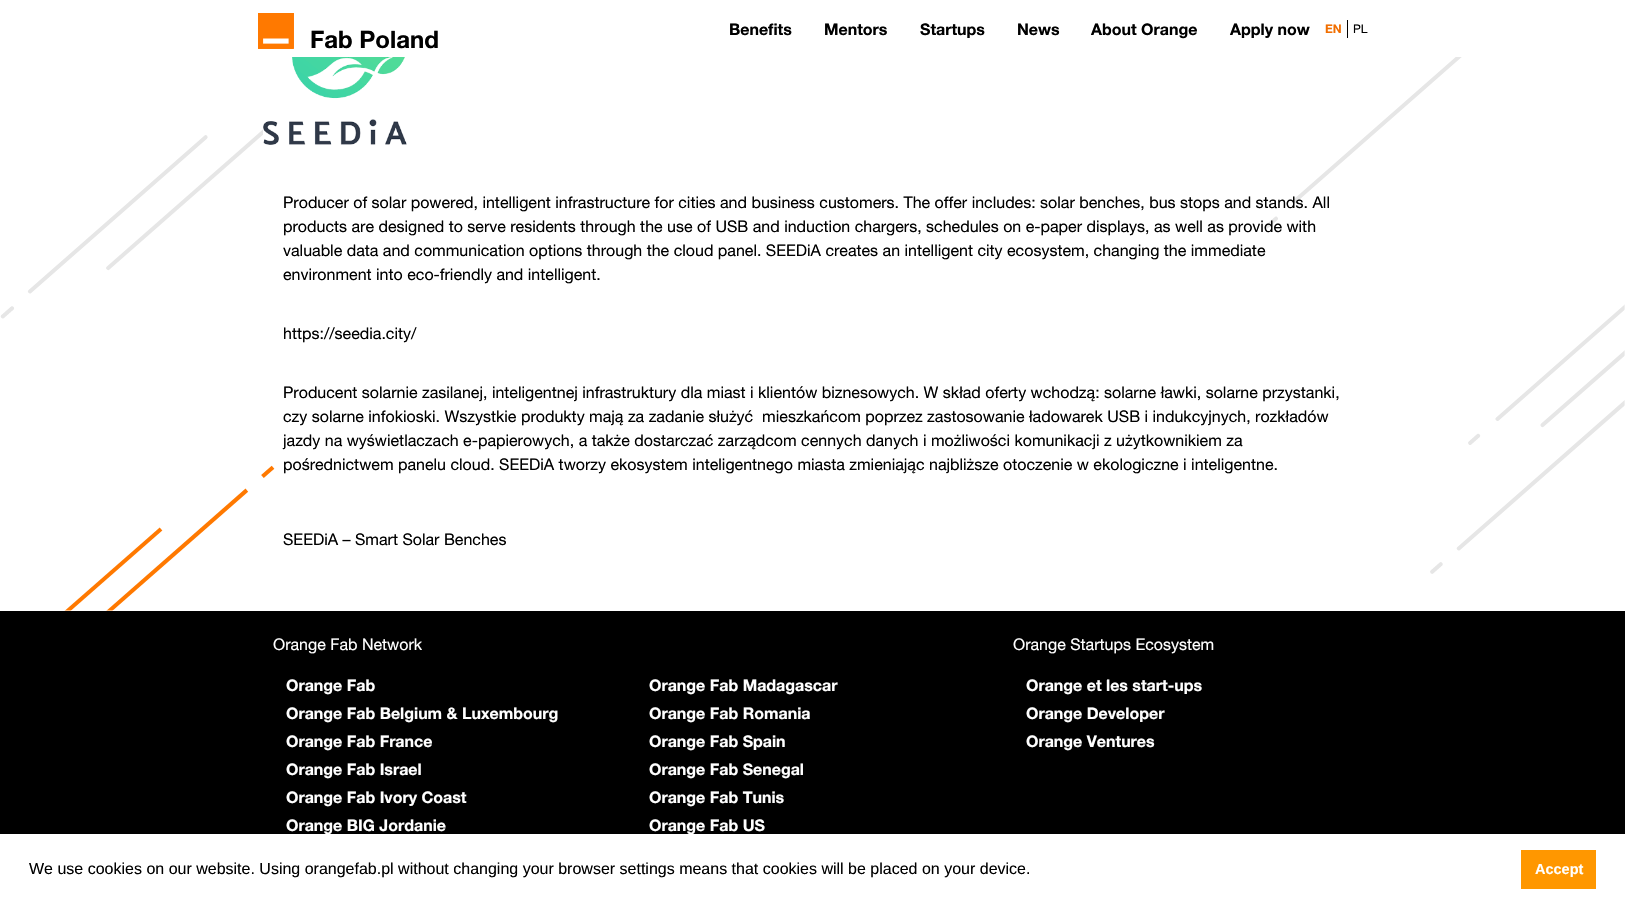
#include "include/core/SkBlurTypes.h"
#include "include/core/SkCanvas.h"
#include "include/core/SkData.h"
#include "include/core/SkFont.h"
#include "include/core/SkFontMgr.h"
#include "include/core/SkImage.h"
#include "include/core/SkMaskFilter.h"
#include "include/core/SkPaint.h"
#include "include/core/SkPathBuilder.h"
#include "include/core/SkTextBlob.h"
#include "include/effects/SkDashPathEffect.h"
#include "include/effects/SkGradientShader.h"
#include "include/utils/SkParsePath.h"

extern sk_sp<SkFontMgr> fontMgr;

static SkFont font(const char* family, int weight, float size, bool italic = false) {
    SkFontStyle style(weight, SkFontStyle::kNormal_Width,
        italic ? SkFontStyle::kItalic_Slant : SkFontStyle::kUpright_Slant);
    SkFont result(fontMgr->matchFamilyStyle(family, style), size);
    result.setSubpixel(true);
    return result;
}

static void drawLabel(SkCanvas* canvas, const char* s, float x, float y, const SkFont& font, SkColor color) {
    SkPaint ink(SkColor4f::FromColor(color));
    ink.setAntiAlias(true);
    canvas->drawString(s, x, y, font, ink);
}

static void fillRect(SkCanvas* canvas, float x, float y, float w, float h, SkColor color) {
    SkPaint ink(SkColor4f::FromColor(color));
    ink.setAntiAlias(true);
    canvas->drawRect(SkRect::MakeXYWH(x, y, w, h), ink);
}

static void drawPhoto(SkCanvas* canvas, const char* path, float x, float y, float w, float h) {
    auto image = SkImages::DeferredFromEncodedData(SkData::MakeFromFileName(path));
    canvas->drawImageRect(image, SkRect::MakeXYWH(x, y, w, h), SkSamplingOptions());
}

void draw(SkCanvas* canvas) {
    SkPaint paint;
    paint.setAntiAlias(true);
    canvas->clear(0xFFFFFFFF);
    SkFont font1 = font("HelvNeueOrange", 700, 16);
    drawLabel(canvas, "Benefits", 729, 35, font1, 0xFF000000);
    drawLabel(canvas, "Mentors", 824, 35, font1, 0xFF000000);
    drawLabel(canvas, "Startups", 920, 35, font1, 0xFF000000);
    drawLabel(canvas, "News", 1017, 35, font1, 0xFF000000);
    drawLabel(canvas, "About Orange", 1091, 35, font1, 0xFF000000);
    drawLabel(canvas, "Apply now", 1230, 35, font1, 0xFF000000);
    fillRect(canvas, 1347, 20, 1, 18, 0xFF000000);
    SkFont font2 = font("HelvNeueOrange", 700, 12);
    drawLabel(canvas, "EN", 1325, 33, font2, 0xFFF16E00);
    SkFont font3 = font("HelvNeueOrange", 400, 12);
    drawLabel(canvas, "PL", 1353, 33, font3, 0xFF000000);
    drawPhoto(canvas, "assets/img1.png", 258, 13, 36, 36);
    drawPhoto(canvas, "assets/img2.png", 258, 13, 36, 36);
    SkFont font4 = font("HelvNeueOrange", 700, 24);
    drawLabel(canvas, "Fab Poland", 310, 48, font4, 0xFF000000);
    drawPhoto(canvas, "assets/img3.png", 0, 57, 1625, 554);
    drawPhoto(canvas, "assets/img4.png", 263, 57, 144, 88);
    SkFont font5 = font("HelvNeueOrange", 400, 16);
    drawLabel(canvas, "Producer of solar powered, intelligent infrastructure for cities and business customers. The offer includes: solar benches, bus stops and stands. All", 283, 208, font5, 0xFF000000);
    drawLabel(canvas, "products are designed to serve residents through the use of USB and induction chargers, schedules on e-paper displays, as well as provide with", 283, 232, font5, 0xFF000000);
    drawLabel(canvas, "valuable data and communication options through the cloud panel. SEEDiA creates an intelligent city ecosystem, changing the immediate", 283, 256, font5, 0xFF000000);
    drawLabel(canvas, "environment into eco-friendly and intelligent.", 283, 280, font5, 0xFF000000);
    drawLabel(canvas, "https://seedia.city/", 283, 339, font5, 0xFF000000);
    drawLabel(canvas, "Producent solarnie zasilanej, inteligentnej infrastruktury dla miast i klientów biznesowych. W skład oferty wchodzą: solarne ławki, solarne przystanki,", 283, 398, font5, 0xFF000000);
    drawLabel(canvas, "czy solarne infokioski. Wszystkie produkty mają za zadanie służyć  mieszkańcom poprzez zastosowanie ładowarek USB i indukcyjnych, rozkładów", 283, 422, font5, 0xFF000000);
    drawLabel(canvas, "jazdy na wyświetlaczach e-papierowych, a także dostarczać zarządcom cennych danych i możliwości komunikacji z użytkownikiem za", 283, 446, font5, 0xFF000000);
    drawLabel(canvas, "pośrednictwem panelu cloud. SEEDiA tworzy ekosystem inteligentnego miasta zmieniając najbliższe otoczenie w ekologiczne i inteligentne.", 283, 470, font5, 0xFF000000);
    drawLabel(canvas, "SEEDiA – Smart Solar Benches", 283, 545, font5, 0xFF000000);
    fillRect(canvas, 0, 611, 1625, 223, 0xFF000000);
    drawLabel(canvas, "Orange Fab Network", 273, 650, font5, 0xFFFFFFFF);
    drawLabel(canvas, "Orange Fab", 286, 691, font1, 0xFFFFFFFF);
    drawLabel(canvas, "Orange Fab Madagascar", 649, 691, font1, 0xFFFFFFFF);
    drawLabel(canvas, "Orange Fab Belgium & Luxembourg", 286, 719, font1, 0xFFFFFFFF);
    drawLabel(canvas, "Orange Fab Romania", 649, 719, font1, 0xFFFFFFFF);
    drawLabel(canvas, "Orange Fab France", 286, 747, font1, 0xFFFFFFFF);
    drawLabel(canvas, "Orange Fab Spain", 649, 747, font1, 0xFFFFFFFF);
    drawLabel(canvas, "Orange Fab Israel", 286, 775, font1, 0xFFFFFFFF);
    drawLabel(canvas, "Orange Fab Senegal", 649, 775, font1, 0xFFFFFFFF);
    drawLabel(canvas, "Orange Fab Ivory Coast", 286, 803, font1, 0xFFFFFFFF);
    drawLabel(canvas, "Orange Fab Tunis", 649, 803, font1, 0xFFFFFFFF);
    drawLabel(canvas, "Orange BIG Jordanie", 286, 831, font1, 0xFFFFFFFF);
    drawLabel(canvas, "Orange Fab US", 649, 831, font1, 0xFFFFFFFF);
    drawLabel(canvas, "Orange Startups Ecosystem", 1013, 650, font5, 0xFFFFFFFF);
    drawLabel(canvas, "Orange et les start-ups", 1026, 691, font1, 0xFFFFFFFF);
    drawLabel(canvas, "Orange Developer", 1026, 719, font1, 0xFFFFFFFF);
    drawLabel(canvas, "Orange Ventures", 1026, 747, font1, 0xFFFFFFFF);
    SkFont font6 = font("Liberation Sans", 400, 16);
    drawLabel(canvas, "We use cookies on our website. Using orangefab.pl without changing your browser settings means that cookies will be placed on your device.", 29, 874, font6, 0xFF000000);
    fillRect(canvas, 1521, 850, 75, 39, 0xFFFF9700);
    SkFont font7 = font("Liberation Sans", 700, 14.5f);
    drawLabel(canvas, "Accept", 1535, 874, font7, 0xFFFFFFFF);
}
